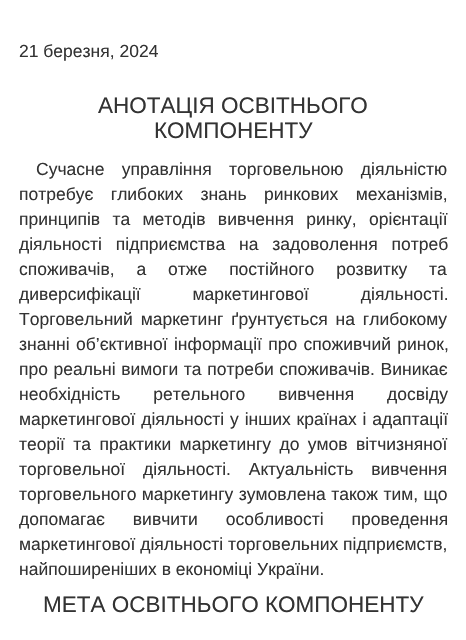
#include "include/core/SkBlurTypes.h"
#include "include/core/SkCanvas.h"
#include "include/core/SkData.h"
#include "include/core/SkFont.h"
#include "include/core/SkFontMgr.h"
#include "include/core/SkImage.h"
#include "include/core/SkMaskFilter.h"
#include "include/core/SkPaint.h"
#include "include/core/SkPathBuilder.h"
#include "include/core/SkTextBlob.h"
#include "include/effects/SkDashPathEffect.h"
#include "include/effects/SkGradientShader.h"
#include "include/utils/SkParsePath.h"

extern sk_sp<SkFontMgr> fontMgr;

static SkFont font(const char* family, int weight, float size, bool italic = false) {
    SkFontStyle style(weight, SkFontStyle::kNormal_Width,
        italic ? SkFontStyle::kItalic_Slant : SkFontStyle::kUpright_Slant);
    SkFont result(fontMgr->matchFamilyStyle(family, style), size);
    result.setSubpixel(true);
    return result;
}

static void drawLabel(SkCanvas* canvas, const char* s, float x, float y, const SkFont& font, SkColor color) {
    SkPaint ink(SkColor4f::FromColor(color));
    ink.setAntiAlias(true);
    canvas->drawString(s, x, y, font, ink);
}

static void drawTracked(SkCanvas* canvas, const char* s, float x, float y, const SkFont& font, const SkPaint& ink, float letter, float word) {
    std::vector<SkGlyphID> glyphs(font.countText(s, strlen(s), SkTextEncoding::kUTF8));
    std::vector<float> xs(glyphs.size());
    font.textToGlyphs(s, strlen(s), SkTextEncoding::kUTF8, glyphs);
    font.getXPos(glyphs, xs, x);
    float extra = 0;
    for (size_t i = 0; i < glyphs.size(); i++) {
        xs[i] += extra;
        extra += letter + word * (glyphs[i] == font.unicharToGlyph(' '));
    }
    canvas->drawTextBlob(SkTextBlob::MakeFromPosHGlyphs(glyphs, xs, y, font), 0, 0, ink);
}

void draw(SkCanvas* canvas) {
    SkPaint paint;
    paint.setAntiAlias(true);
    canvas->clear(0xFFFFFFFF);
    SkFont font1 = font("Liberation Sans", 400, 17.5f);
    drawLabel(canvas, "21 березня, 2024", 19, 57, font1, 0xFF333333);
    SkFont font2 = font("Liberation Sans", 400, 22.5f);
    drawLabel(canvas, "АНОТАЦІЯ ОСВІТНЬОГО", 98, 113, font2, 0xFF333333);
    drawLabel(canvas, "КОМПОНЕНТУ", 154, 138, font2, 0xFF333333);
    paint.setColor(0xFF333333);
    drawTracked(canvas, "Сучасне управління торговельною діяльністю", 36, 175, font1, paint, 0, 12.5f);
    drawTracked(canvas, "потребує глибоких знань ринкових механізмів,", 19, 200, font1, paint, 0, 12.5f);
    drawTracked(canvas, "принципів та методів вивчення ринку, орієнтації", 19, 225, font1, paint, 0, 7.5f);
    drawTracked(canvas, "діяльності підприємства на задоволення потреб", 19, 250, font1, paint, 0, 9);
    drawTracked(canvas, "споживачів, а отже постійного розвитку та", 19, 275, font1, paint, 0, 17);
    drawTracked(canvas, "диверсифікації маркетингової діяльності.", 19, 300, font1, paint, 0, 47);
    drawTracked(canvas, "Торговельний маркетинг ґрунтується на глибокому", 19, 325, font1, paint, 0, 3);
    drawTracked(canvas, "знанні об’єктивної інформації про споживчий ринок,", 19, 350, font1, paint, 0, 1.5f);
    drawTracked(canvas, "про реальні вимоги та потреби споживачів. Виникає", 19, 375, font1, paint, 0, 0.75f);
    drawTracked(canvas, "необхідність ретельного вивчення досвіду", 19, 400, font1, paint, 0, 28);
    drawTracked(canvas, "маркетингової діяльності у інших країнах і адаптації", 19, 425, font1, paint, 0, 1);
    drawTracked(canvas, "теорії та практики маркетингу до умов вітчизняної", 19, 450, font1, paint, 0, 3.5f);
    drawTracked(canvas, "торговельної діяльності. Актуальність вивчення", 19, 475, font1, paint, 0, 13);
    drawTracked(canvas, "торговельного маркетингу зумовлена також тим, що", 19, 500, font1, paint, 0, 0.5f);
    drawTracked(canvas, "допомагає вивчити особливості проведення", 19, 525, font1, paint, 0, 23);
    drawLabel(canvas, "маркетингової діяльності торговельних підприємств,", 19, 550, font1, 0xFF333333);
    drawLabel(canvas, "найпоширеніших в економіці України.", 19, 575, font1, 0xFF333333);
    drawLabel(canvas, "МЕТА ОСВІТНЬОГО КОМПОНЕНТУ", 43, 612, font2, 0xFF333333);
}
